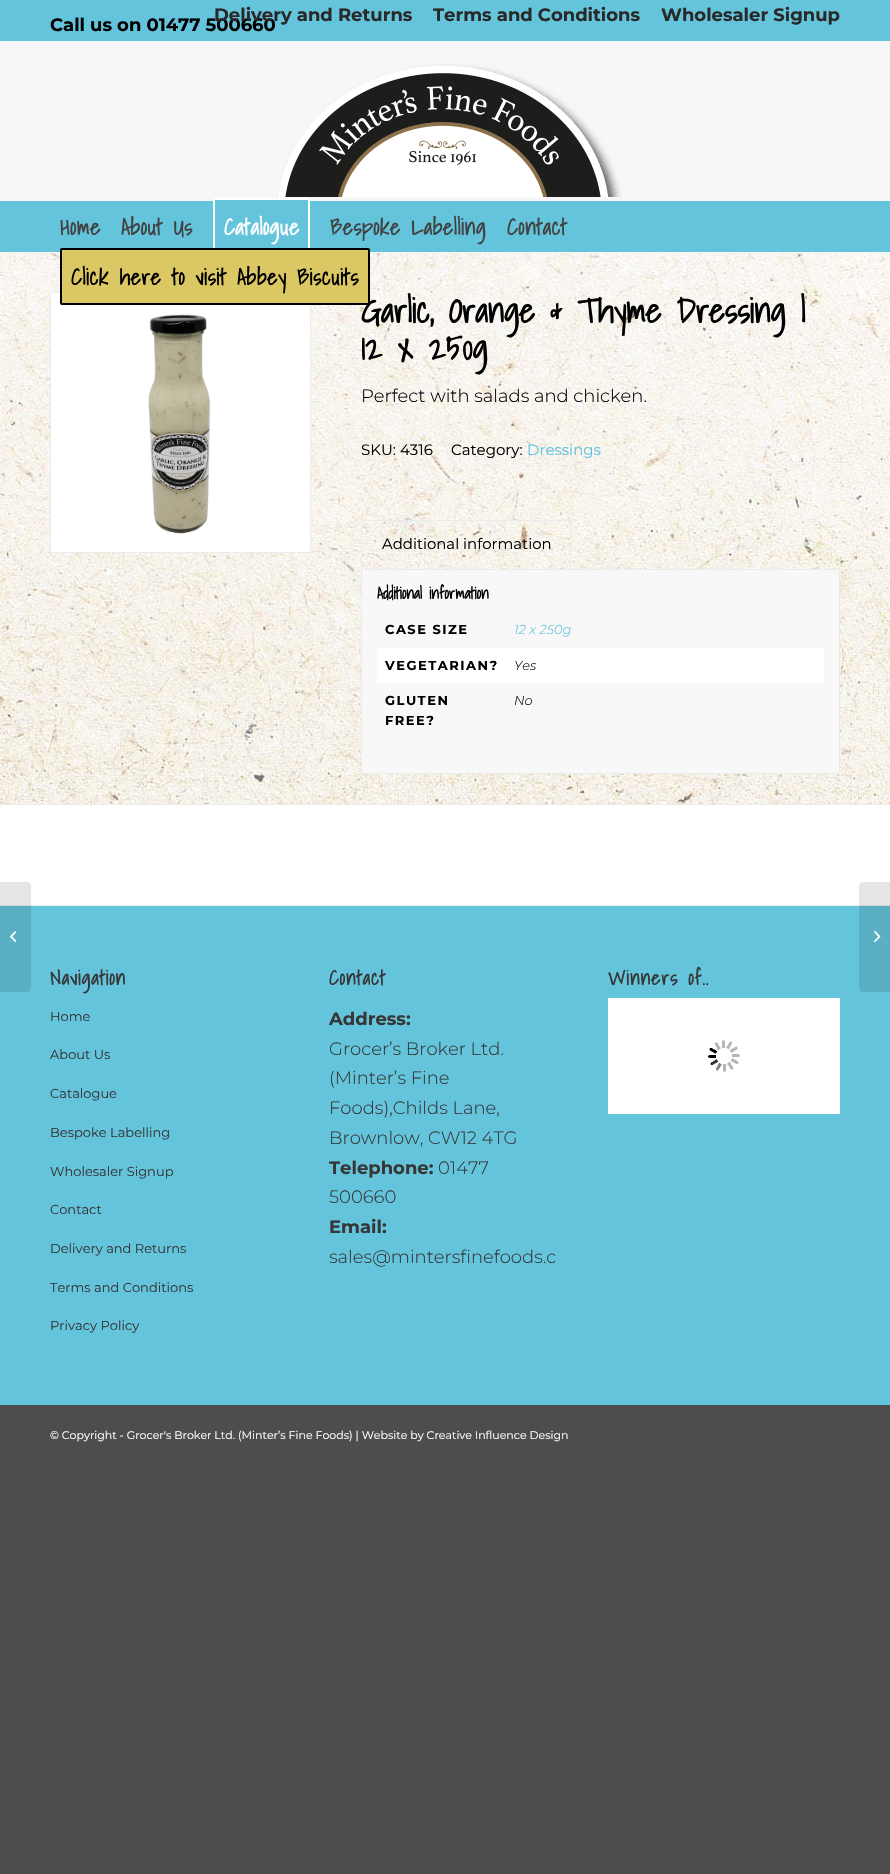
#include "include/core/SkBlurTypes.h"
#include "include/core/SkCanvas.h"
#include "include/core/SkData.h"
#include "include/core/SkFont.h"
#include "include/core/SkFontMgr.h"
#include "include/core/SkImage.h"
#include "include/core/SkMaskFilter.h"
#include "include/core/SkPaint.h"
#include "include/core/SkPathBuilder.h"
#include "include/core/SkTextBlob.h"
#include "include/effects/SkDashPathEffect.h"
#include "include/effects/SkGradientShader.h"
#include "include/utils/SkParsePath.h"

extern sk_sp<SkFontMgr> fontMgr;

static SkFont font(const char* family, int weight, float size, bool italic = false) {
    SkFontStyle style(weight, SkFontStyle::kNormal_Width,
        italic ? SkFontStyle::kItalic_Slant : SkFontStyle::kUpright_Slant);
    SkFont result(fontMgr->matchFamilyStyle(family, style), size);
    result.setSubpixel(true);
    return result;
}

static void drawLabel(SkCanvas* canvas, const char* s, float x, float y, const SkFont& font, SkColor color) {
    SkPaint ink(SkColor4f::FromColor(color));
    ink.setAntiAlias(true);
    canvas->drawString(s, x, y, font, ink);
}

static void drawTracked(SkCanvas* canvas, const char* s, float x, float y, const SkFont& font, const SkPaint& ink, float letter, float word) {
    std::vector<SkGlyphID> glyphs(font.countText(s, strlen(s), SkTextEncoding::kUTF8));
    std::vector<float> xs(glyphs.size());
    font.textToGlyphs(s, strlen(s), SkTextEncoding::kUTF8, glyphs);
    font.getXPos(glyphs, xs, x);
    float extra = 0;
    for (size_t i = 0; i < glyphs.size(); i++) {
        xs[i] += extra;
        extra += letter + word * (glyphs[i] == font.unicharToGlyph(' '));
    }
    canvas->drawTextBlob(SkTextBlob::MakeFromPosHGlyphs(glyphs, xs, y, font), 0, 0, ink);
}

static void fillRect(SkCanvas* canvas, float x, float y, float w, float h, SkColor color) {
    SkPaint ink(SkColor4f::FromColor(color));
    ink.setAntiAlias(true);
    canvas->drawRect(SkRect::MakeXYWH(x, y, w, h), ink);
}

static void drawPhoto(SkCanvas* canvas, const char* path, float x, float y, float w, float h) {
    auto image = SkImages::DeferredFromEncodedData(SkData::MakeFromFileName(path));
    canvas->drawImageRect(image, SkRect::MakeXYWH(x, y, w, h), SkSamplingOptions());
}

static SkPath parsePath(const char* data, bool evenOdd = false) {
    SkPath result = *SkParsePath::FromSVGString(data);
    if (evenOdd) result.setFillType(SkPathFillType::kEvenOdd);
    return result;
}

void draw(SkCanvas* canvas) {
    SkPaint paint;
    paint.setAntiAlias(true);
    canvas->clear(0xFF4D4D4D);
    fillRect(canvas, 0, 0, 890, 41, 0xFF63C4DC);
    SkFont font1 = font("Montserrat", 700, 18);
    drawLabel(canvas, "Call us on 01477 500660", 50, 31, font1, 0xFF000000);
    drawLabel(canvas, "Delivery and Returns", 214, 21, font1, 0xFF292929);
    drawLabel(canvas, "Terms and Conditions", 433, 21, font1, 0xFF292929);
    drawLabel(canvas, "Wholesaler Signup", 661, 21, font1, 0xFF292929);
    fillRect(canvas, 0, 41, 890, 212, 0xFFF7F7F7);
    drawPhoto(canvas, "assets/img1.png", 277, 64, 345, 133);
    fillRect(canvas, 0, 201, 890, 51, 0xFF63C4DC);
    SkFont font2 = font("Shadows Into Light", 700, 22);
    paint.setColor(0xFF424242);
    drawTracked(canvas, "Home", 60, 235, font2, paint, 0.65f, 0);
    drawTracked(canvas, "About Us", 121, 235, font2, paint, 0.65f, 0);
    drawPhoto(canvas, "assets/img3.png", 0, 253, 890, 551);
    paint.setColor(0xFF63C4DC);
    canvas->drawRoundRect(SkRect::MakeXYWH(214, 199, 95, 55), 1, 1, paint);
    paint.setStroke(true);
    paint.setStrokeWidth(2);
    paint.setColor(0xFFFFFFFF);
    canvas->drawRoundRect(SkRect::MakeXYWH(214, 199, 95, 55), 1, 1, paint);
    paint.setStroke(false);
    drawTracked(canvas, "Catalogue", 224, 235, font2, paint, 0.65f, 0);
    paint.setColor(0xFF424242);
    drawTracked(canvas, "Bespoke Labelling", 330, 235, font2, paint, 0.65f, 0);
    drawTracked(canvas, "Contact", 507, 235, font2, paint, 0.65f, 0);
    paint.setColor(0xFFFFFFFF);
    canvas->drawRect(SkRect::MakeXYWH(50.5f, 292.5f, 260, 260), paint);
    paint.setStroke(true);
    paint.setStrokeWidth(1);
    paint.setColor(0xFFEBEBEB);
    canvas->drawRect(SkRect::MakeXYWH(50.5f, 292.5f, 260, 260), paint);
    SkFont font3 = font("Shadows Into Light", 700, 34);
    drawLabel(canvas, "Garlic, Orange & Thyme Dressing |", 361, 323, font3, 0xFF000000);
    paint.setStroke(false);
    paint.setColor(0xFFDBC763);
    canvas->drawRoundRect(SkRect::MakeXYWH(61, 249, 308, 55), 1, 1, paint);
    paint.setStroke(true);
    paint.setStrokeWidth(2);
    paint.setColor(0xFF000000);
    canvas->drawRoundRect(SkRect::MakeXYWH(61, 249, 308, 55), 1, 1, paint);
    paint.setStroke(false);
    drawTracked(canvas, "Click here to visit Abbey Biscuits", 71, 285, font2, paint, 0.65f, 0);
    fillRect(canvas, 0, 805, 890, 100, 0xFFFFFFFF);
    fillRect(canvas, 0, 906, 890, 499, 0xFF63C4DC);
    fillRect(canvas, 0, 905, 890, 1, 0xFFEBEBEB);
    paint.setColor(0x1A000000);
    canvas->drawPath(parsePath("M0 882H27C29 882 31 884 31 886V988C31 990 29 992 27 992H0Z"), paint);
    drawPhoto(canvas, "assets/img2.png", 10, 931, 7, 12);
    drawPhoto(canvas, "assets/img4.png", 148, 314, 63, 220);
    drawLabel(canvas, "12 x 250g", 361, 360, font3, 0xFF000000);
    SkFont font4 = font("Montserrat", 300, 18);
    drawLabel(canvas, "Perfect with salads and chicken.", 361, 402, font4, 0xFF000000);
    SkFont font5 = font("Montserrat", 400, 15);
    drawLabel(canvas, "SKU: 4316", 361, 455, font5, 0xFF000000);
    drawLabel(canvas, "Category:", 451, 455, font5, 0xFF000000);
    drawLabel(canvas, "Dressings", 527, 455, font5, 0xFF63C4DC);
    fillRect(canvas, 362, 520, 208, 1, 0xFFEBEBEB);
    paint.setColor(0xFFF8F8F8);
    canvas->drawPath(parsePath("M361.5 569.5H839.5V771C839.5 772.5 838.5 773.5 837 773.5H364C362.5 773.5 361.5 772.5 361.5 771Z"), paint);
    paint.setStroke(true);
    paint.setStrokeWidth(1);
    paint.setColor(0xFFEBEBEB);
    canvas->drawPath(parsePath("M361.5 569.5H839.5V771C839.5 772.5 838.5 773.5 837 773.5H364C362.5 773.5 361.5 772.5 361.5 771Z"), paint);
    fillRect(canvas, 570, 521, 1, 49, 0xFFEBEBEB);
    fillRect(canvas, 361, 521, 1, 49, 0xFFEBEBEB);
    SkFont font6 = font("Montserrat", 400, 14.9f);
    drawLabel(canvas, "Additional information", 382, 549, font6, 0xFF000000);
    SkFont font7 = font("Shadows Into Light", 700, 16);
    drawLabel(canvas, "Additional information", 377, 599, font7, 0xFF000000);
    SkFont font8 = font("Montserrat", 700, 13);
    paint.setStroke(false);
    paint.setColor(0xFF000000);
    drawTracked(canvas, "CASE SIZE", 385, 634, font8, paint, 1.5f, 0);
    SkFont font9 = font("Montserrat", 300, 13, true);
    drawLabel(canvas, "12 x 250g", 514, 634, font9, 0xFF63C4DC);
    fillRect(canvas, 377, 648, 447, 35, 0xFFFFFFFF);
    drawTracked(canvas, "VEGETARIAN?", 385, 670, font8, paint, 1.5f, 0);
    drawLabel(canvas, "Yes", 514, 670, font9, 0xFF000000);
    drawTracked(canvas, "GLUTEN", 385, 705, font8, paint, 1.5f, 0);
    drawTracked(canvas, "FREE?", 385, 725, font8, paint, 1.5f, 0);
    drawLabel(canvas, "No", 514, 705, font9, 0xFF000000);
    fillRect(canvas, 0, 804, 890, 1, 0xFFEBEBEB);
    SkFont font10 = font("Shadows Into Light", 700, 19.75f);
    paint.setColor(0xFF363636);
    drawTracked(canvas, "Navigation", 50, 985, font10, paint, 1, 0);
    SkFont font11 = font("Montserrat", 400, 13);
    drawLabel(canvas, "Home", 50, 1021, font11, 0xFF363636);
    drawLabel(canvas, "About Us", 50, 1059, font11, 0xFF363636);
    drawLabel(canvas, "Catalogue", 50, 1098, font11, 0xFF363636);
    drawLabel(canvas, "Bespoke Labelling", 50, 1137, font11, 0xFF363636);
    drawLabel(canvas, "Wholesaler Signup", 50, 1176, font11, 0xFF363636);
    drawLabel(canvas, "Contact", 50, 1214, font11, 0xFF363636);
    drawLabel(canvas, "Delivery and Returns", 50, 1253, font11, 0xFF363636);
    drawLabel(canvas, "Terms and Conditions", 50, 1292, font11, 0xFF363636);
    drawLabel(canvas, "Privacy Policy", 50, 1330, font11, 0xFF363636);
    drawTracked(canvas, "Contact", 329, 985, font10, paint, 1, 0);
    drawLabel(canvas, "Address:", 329, 1025, font1, 0xFF363636);
    drawLabel(canvas, "Grocer’s Broker Ltd.", 329, 1055, font4, 0xFF363636);
    drawLabel(canvas, "(Minter’s Fine", 329, 1084, font4, 0xFF363636);
    drawLabel(canvas, "Foods),Childs Lane,", 329, 1114, font4, 0xFF363636);
    drawLabel(canvas, "Brownlow, CW12 4TG", 329, 1144, font4, 0xFF363636);
    drawLabel(canvas, "Telephone:", 329, 1174, font1, 0xFF363636);
    drawLabel(canvas, "01477", 438, 1174, font4, 0xFF363636);
    drawLabel(canvas, "500660", 329, 1203, font4, 0xFF363636);
    drawLabel(canvas, "Email:", 329, 1233, font1, 0xFF363636);
    drawLabel(canvas, "sales@mintersfinefoods.c", 329, 1263, font4, 0xFF363636);
    drawTracked(canvas, "Winners of..", 608, 985, font10, paint, 1, 0);
    fillRect(canvas, 608, 998, 232, 116, 0xFFFFFFFF);
    drawPhoto(canvas, "assets/img5.png", 708, 1040, 32, 32);
    SkFont font12 = font("Montserrat", 400, 11);
    drawLabel(canvas, "© Copyright - Grocer's Broker Ltd. (Minter’s Fine Foods) | Website by Creative Influence Design", 50, 1439, font12, 0xFFFFFFFF);
    paint.setColor(0x1A000000);
    canvas->drawPath(parsePath("M863 882H890V992H863C861 992 859 990 859 988V886C859 884 861 882 863 882Z"), paint);
    drawPhoto(canvas, "assets/img6.png", 874, 931, 7, 12);
}
